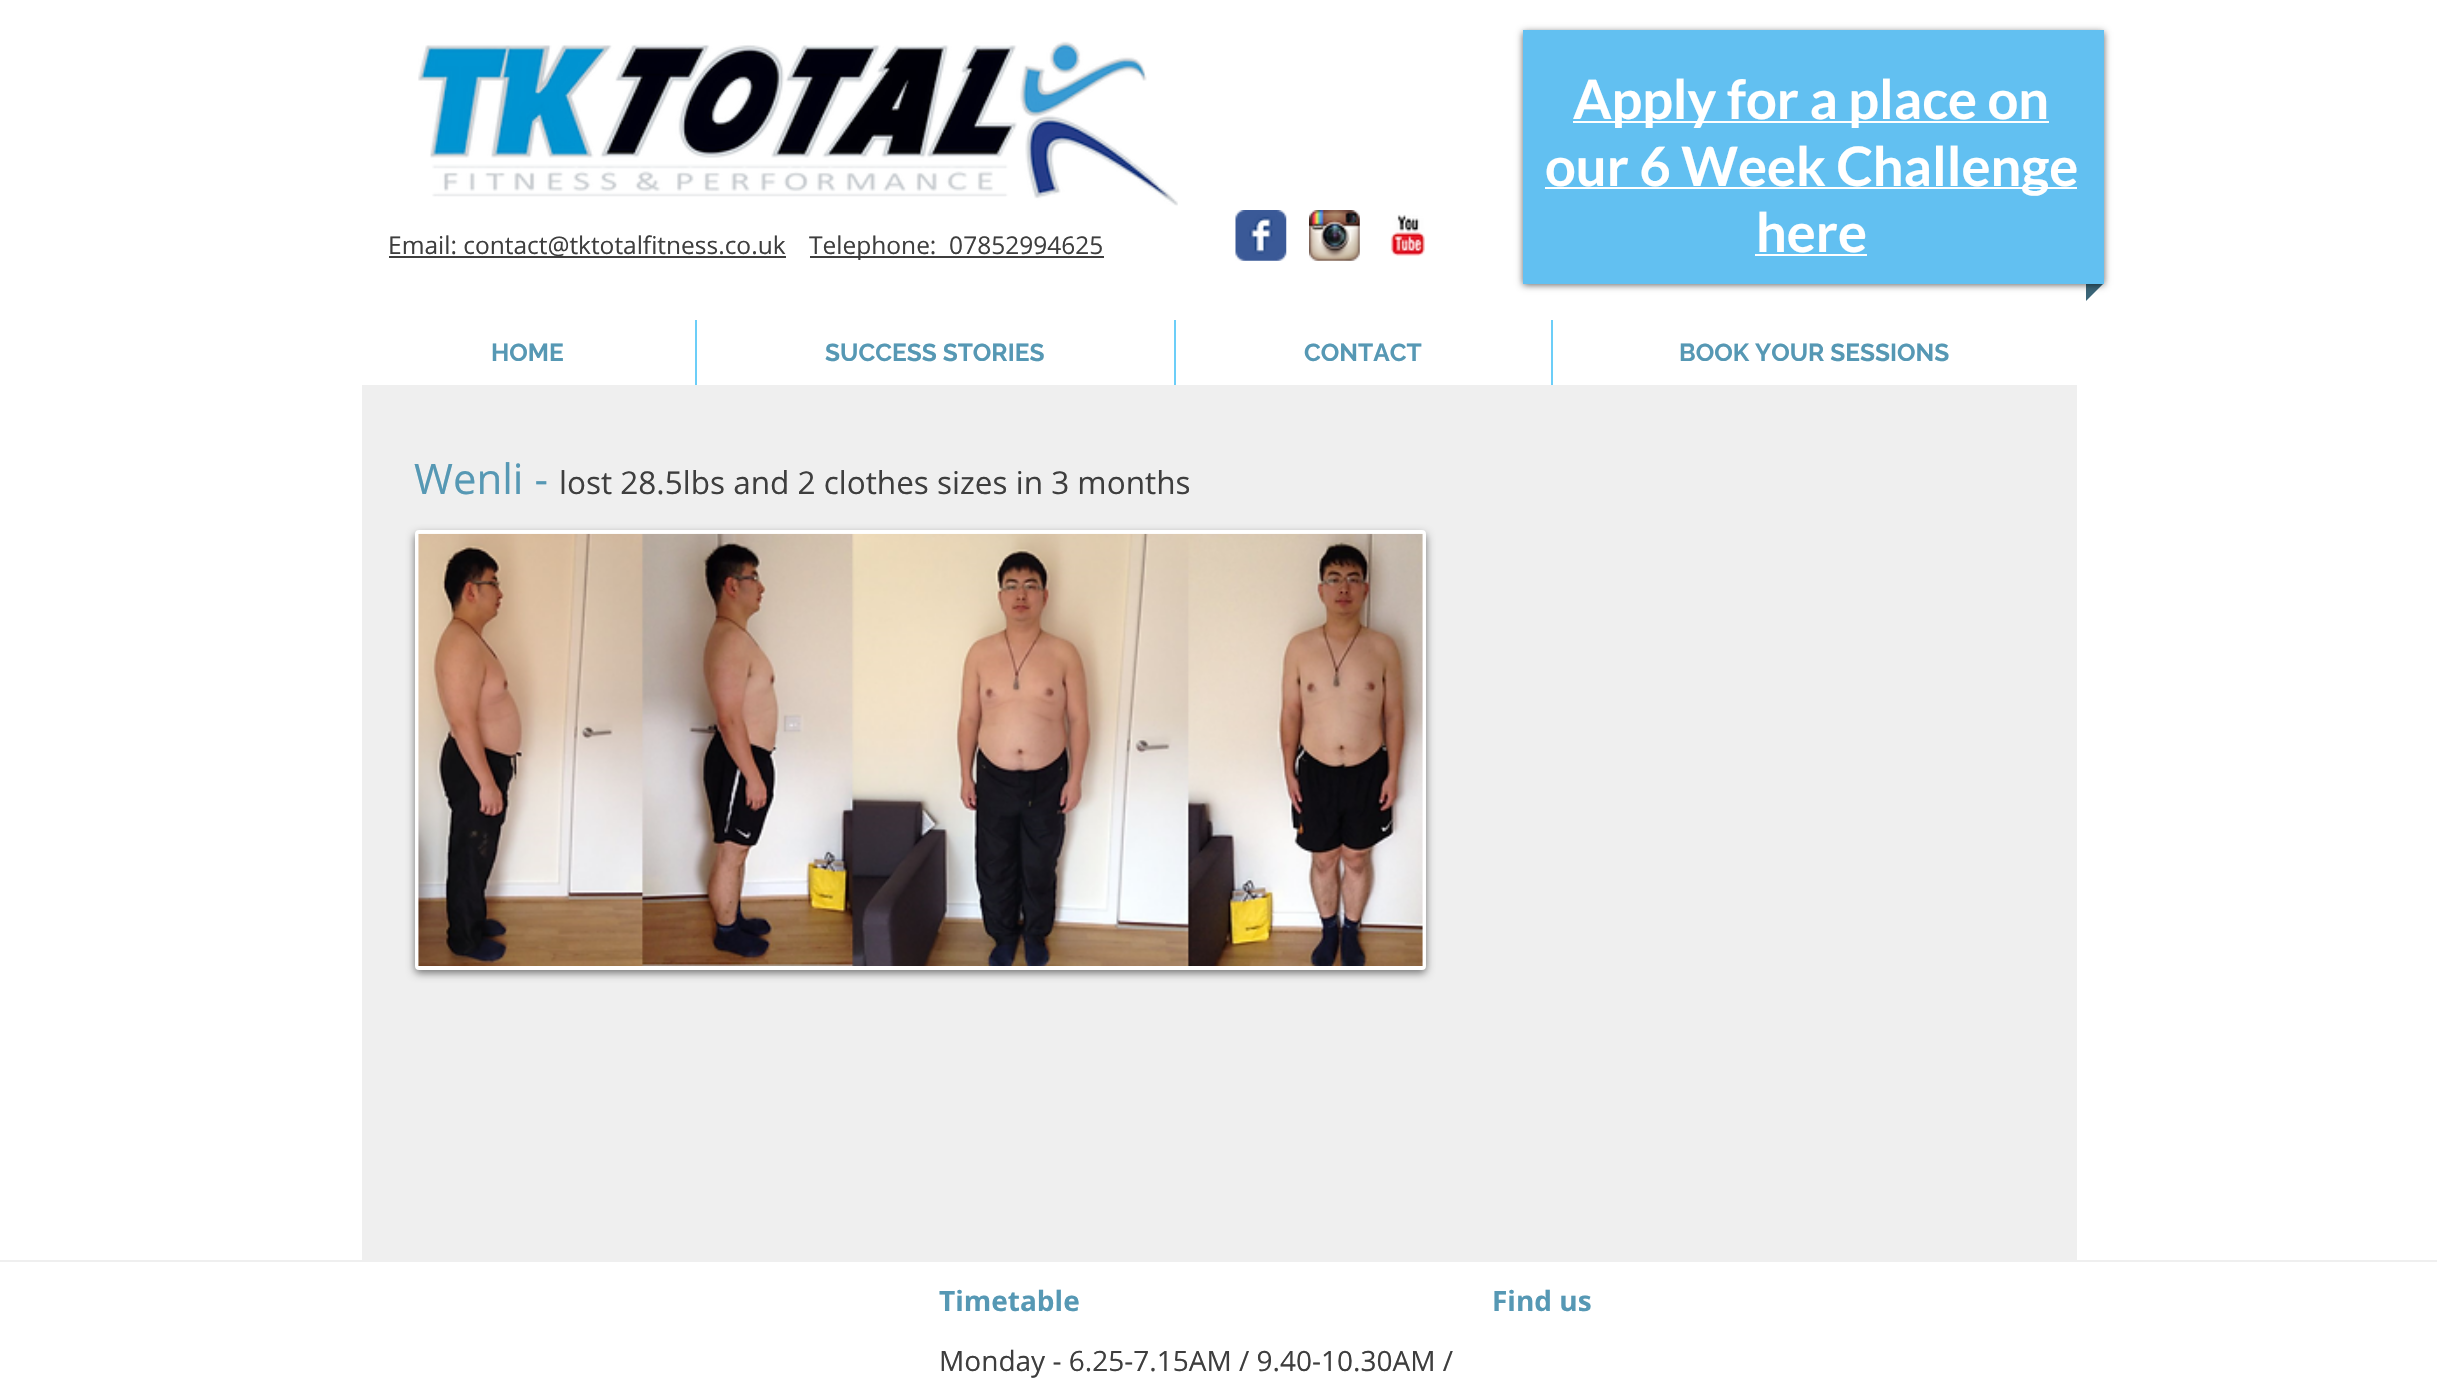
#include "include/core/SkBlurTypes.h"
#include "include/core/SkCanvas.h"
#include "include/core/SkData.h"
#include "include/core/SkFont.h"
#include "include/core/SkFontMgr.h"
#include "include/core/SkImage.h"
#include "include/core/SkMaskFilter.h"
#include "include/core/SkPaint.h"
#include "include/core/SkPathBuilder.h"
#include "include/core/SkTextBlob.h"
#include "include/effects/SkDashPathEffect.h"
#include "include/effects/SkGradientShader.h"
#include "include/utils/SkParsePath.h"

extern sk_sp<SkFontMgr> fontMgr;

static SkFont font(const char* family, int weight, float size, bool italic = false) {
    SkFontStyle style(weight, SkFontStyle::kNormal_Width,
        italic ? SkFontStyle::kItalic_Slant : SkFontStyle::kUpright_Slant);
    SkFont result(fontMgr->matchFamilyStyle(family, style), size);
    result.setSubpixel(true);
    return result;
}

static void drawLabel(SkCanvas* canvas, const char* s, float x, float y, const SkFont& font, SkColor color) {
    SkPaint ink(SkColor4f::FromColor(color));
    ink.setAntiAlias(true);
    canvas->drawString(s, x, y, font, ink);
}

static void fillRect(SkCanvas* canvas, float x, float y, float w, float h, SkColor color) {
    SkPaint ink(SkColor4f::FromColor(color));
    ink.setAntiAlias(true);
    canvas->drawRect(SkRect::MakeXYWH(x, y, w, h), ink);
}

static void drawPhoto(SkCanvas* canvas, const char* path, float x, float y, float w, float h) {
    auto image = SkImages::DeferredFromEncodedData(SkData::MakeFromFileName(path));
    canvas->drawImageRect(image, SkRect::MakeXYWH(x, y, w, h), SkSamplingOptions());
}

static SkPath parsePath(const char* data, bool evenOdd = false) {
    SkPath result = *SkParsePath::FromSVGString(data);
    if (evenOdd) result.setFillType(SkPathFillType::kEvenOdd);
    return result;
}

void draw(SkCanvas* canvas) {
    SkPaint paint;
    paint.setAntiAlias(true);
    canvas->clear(0xFFFFFFFF);
    drawPhoto(canvas, "assets/img1.png", 418, 41, 760, 165);
    drawPhoto(canvas, "assets/img2.png", 1235, 210, 52, 51);
    drawPhoto(canvas, "assets/img3.png", 1309, 210, 51, 51);
    drawPhoto(canvas, "assets/img4.png", 1390, 214, 35, 42);
    paint.setColor(0xFF3A6578);
    canvas->drawPath(parsePath("M2086 283.5H2103.5L2086 301Z"), paint);
    paint.setColor(0x99000000);
    paint.setMaskFilter(SkMaskFilter::MakeBlur(kNormal_SkBlurStyle, 3.5f));
    canvas->drawRect(SkRect::MakeXYWH(1523, 32, 581, 253), paint);
    paint.setMaskFilter(nullptr);
    fillRect(canvas, 1523, 30, 581, 254, 0xFF62C0F1);
    fillRect(canvas, 1573, 121, 476, 2, 0xFFFFFFFF);
    SkFont font1 = font("Lato", 700, 54.25f);
    drawLabel(canvas, "Apply for a place on", 1573, 119, font1, 0xFFFFFFFF);
    fillRect(canvas, 1545, 187, 532, 2, 0xFFFFFFFF);
    drawLabel(canvas, "our 6 Week Challenge", 1545, 186, font1, 0xFFFFFFFF);
    drawLabel(canvas, "here", 1756, 252, font1, 0xFFFFFFFF);
    fillRect(canvas, 1755, 254, 112, 2, 0xFFFFFFFF);
    fillRect(canvas, 389, 256, 397, 2, 0xFF3E3E3E);
    SkFont font2 = font("Open Sans", 400, 24.5f);
    drawLabel(canvas, "Email: contact@tktotalfitness.co.uk", 388, 254, font2, 0xFF3E3E3E);
    fillRect(canvas, 810, 256, 294, 2, 0xFF3E3E3E);
    drawLabel(canvas, "Telephone:  07852994625", 809, 254, font2, 0xFF3E3E3E);
    SkFont font3 = font("Raleway", 700, 24.5f);
    drawLabel(canvas, "HOME", 491, 361, font3, 0xFF5698B4);
    fillRect(canvas, 695, 320, 2, 65, 0xFF6CCEF8);
    drawLabel(canvas, "SUCCESS STORIES", 825, 361, font3, 0xFF5698B4);
    fillRect(canvas, 1174, 320, 2, 65, 0xFF6CCEF8);
    drawLabel(canvas, "CONTACT", 1304, 361, font3, 0xFF5698B4);
    fillRect(canvas, 1551, 320, 2, 65, 0xFF6CCEF8);
    drawLabel(canvas, "BOOK YOUR SESSIONS", 1679, 361, font3, 0xFF5698B4);
    fillRect(canvas, 362, 385, 1715, 875, 0xFFEFEFEF);
    SkFont font4 = font("Open Sans", 400, 42);
    drawLabel(canvas, "Wenli -", 414, 494, font4, 0xFF5698B4);
    SkFont font5 = font("Open Sans", 400, 31.5f);
    drawLabel(canvas, "lost 28.5lbs and 2 clothes sizes in 3 months", 559, 494, font5, 0xFF3E3E3E);
    paint.setColor(0x87000000);
    paint.setMaskFilter(SkMaskFilter::MakeBlur(kNormal_SkBlurStyle, 4.5f));
    canvas->drawRoundRect(SkRect::MakeXYWH(415, 534, 1011, 439), 4, 4, paint);
    paint.setMaskFilter(nullptr);
    paint.setStroke(true);
    paint.setStrokeWidth(4);
    paint.setColor(0xFFFFFFFF);
    canvas->drawRoundRect(SkRect::MakeXYWH(417, 532, 1007, 436), 2, 2, paint);
    drawPhoto(canvas, "assets/img5.png", 418, 533, 1005, 433);
    fillRect(canvas, 0, 1260, 2437, 2, 0xFFEFEFEF);
    SkFont font6 = font("Open Sans", 700, 28);
    drawLabel(canvas, "Timetable", 939, 1311, font6, 0xFF5698B4);
    drawLabel(canvas, "Find us", 1492, 1311, font6, 0xFF5698B4);
    SkFont font7 = font("Open Sans", 400, 28);
    drawLabel(canvas, "Monday - 6.25-7.15AM / 9.40-10.30AM /", 939, 1371, font7, 0xFF3E3E3E);
}
